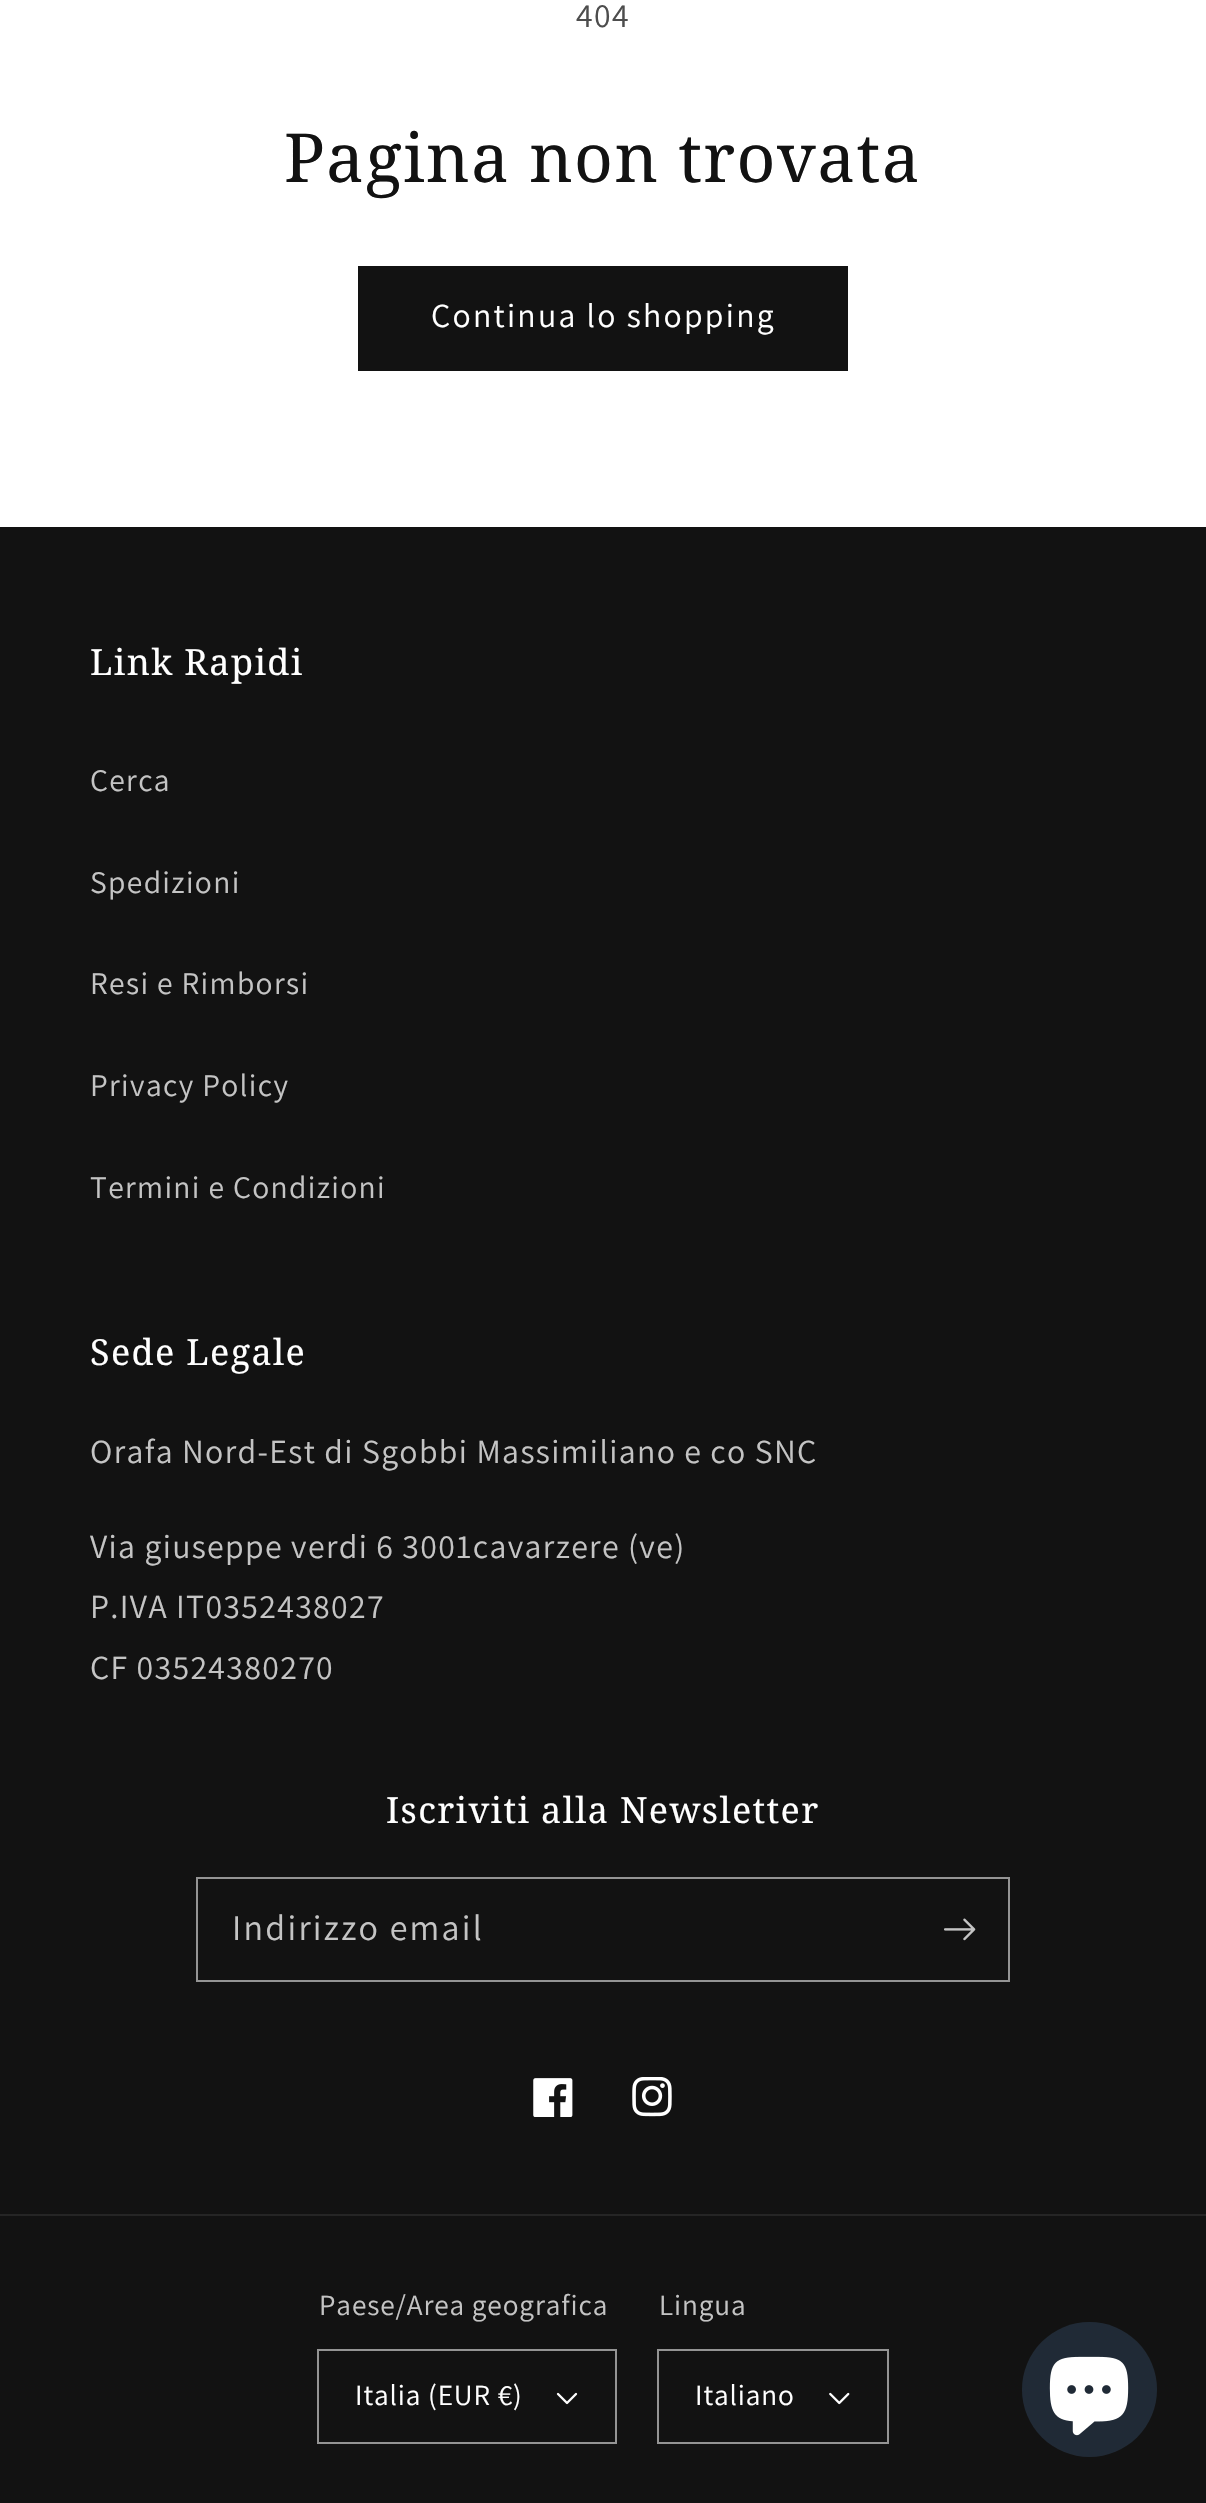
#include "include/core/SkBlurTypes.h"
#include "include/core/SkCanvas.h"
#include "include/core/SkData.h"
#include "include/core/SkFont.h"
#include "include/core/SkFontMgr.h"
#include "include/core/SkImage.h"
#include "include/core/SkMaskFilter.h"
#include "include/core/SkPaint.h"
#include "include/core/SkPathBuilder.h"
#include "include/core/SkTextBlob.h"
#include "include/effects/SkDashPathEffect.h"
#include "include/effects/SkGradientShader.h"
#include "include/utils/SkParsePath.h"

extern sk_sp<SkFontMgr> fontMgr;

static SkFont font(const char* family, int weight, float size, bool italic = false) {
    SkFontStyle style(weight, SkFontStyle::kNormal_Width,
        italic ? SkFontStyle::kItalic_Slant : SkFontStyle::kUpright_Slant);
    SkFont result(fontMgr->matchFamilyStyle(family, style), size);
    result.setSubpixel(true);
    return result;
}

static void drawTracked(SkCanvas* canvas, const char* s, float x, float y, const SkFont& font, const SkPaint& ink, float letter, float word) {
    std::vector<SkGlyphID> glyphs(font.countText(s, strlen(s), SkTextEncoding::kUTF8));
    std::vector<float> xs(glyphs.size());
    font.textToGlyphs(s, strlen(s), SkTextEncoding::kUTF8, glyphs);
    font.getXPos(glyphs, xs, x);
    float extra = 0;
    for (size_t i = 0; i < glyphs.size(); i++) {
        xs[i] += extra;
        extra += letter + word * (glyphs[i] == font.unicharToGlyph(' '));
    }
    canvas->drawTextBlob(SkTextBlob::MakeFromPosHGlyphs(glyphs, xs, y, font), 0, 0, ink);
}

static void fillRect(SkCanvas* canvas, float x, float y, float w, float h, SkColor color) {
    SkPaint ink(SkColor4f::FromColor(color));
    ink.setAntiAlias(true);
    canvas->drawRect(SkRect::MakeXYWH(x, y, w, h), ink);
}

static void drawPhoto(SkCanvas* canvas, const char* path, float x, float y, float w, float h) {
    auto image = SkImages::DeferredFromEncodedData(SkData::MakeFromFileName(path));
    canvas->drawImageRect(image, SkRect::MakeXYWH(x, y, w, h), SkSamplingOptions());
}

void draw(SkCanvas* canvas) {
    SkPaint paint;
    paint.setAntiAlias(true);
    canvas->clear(0xFFFFFFFF);
    SkFont font1 = font("Assistant", 400, 33.75f);
    paint.setColor(0xFF4D4D4D);
    drawTracked(canvas, "404", 576, 27, font1, paint, 1.35f, 0);
    SkFont font2 = font("Noto Serif", 400, 67.5f);
    paint.setColor(0xFF121212);
    drawTracked(canvas, "Pagina non trovata", 284, 182, font2, paint, 1.35f, 0);
    paint.setStroke(true);
    paint.setStrokeWidth(2);
    canvas->drawRect(SkRect::MakeXYWH(359, 267, 488, 103), paint);
    fillRect(canvas, 360, 268, 486, 101, 0xFF121212);
    paint.setStroke(false);
    paint.setColor(0xFFFFFFFF);
    drawTracked(canvas, "Continua lo shopping", 431, 327, font1, paint, 2.25f, 0);
    fillRect(canvas, 0, 527, 1206, 1976, 0xFF121212);
    SkFont font3 = font("Noto Serif", 400, 36);
    drawTracked(canvas, "Link Rapidi", 90, 675, font3, paint, 1.35f, 0);
    SkFont font4 = font("Assistant", 400, 31.5f);
    paint.setColor(0xFFC4C4C4);
    drawTracked(canvas, "Cerca", 90, 791, font4, paint, 1.35f, 0);
    drawTracked(canvas, "Spedizioni", 90, 893, font4, paint, 1.35f, 0);
    drawTracked(canvas, "Resi e Rimborsi", 90, 994, font4, paint, 1.35f, 0);
    drawTracked(canvas, "Privacy Policy", 90, 1096, font4, paint, 1.35f, 0);
    drawTracked(canvas, "Termini e Condizioni", 90, 1198, font4, paint, 1.35f, 0);
    paint.setColor(0xFFFFFFFF);
    drawTracked(canvas, "Sede Legale", 90, 1365, font3, paint, 1.35f, 0);
    paint.setColor(0xFFC4C4C4);
    drawTracked(canvas, "Orafa Nord-Est di Sgobbi Massimiliano e co SNC", 90, 1463, font1, paint, 1.35f, 0);
    drawTracked(canvas, "Via giuseppe verdi 6 3001cavarzere (ve)", 90, 1558, font1, paint, 1.35f, 0);
    drawTracked(canvas, "P.IVA IT0352438027", 90, 1618, font1, paint, 1.35f, 0);
    drawTracked(canvas, "CF 03524380270", 90, 1679, font1, paint, 1.35f, 0);
    paint.setColor(0xFFFFFFFF);
    drawTracked(canvas, "Iscriviti alla Newsletter", 386, 1823, font3, paint, 1.35f, 0);
    paint.setStroke(true);
    paint.setColor(0xFF949494);
    canvas->drawRect(SkRect::MakeXYWH(197, 1878, 812, 103), paint);
    SkFont font5 = font("Assistant", 400, 36);
    paint.setStroke(false);
    paint.setColor(0xFFC4C4C4);
    drawTracked(canvas, "Indirizzo email", 232, 1940, font5, paint, 2.25f, 0);
    drawPhoto(canvas, "assets/img1.png", 944, 1918, 32, 23);
    drawPhoto(canvas, "assets/img2.png", 533, 2078, 40, 39);
    drawPhoto(canvas, "assets/img3.png", 632, 2077, 40, 40);
    fillRect(canvas, 0, 2214, 1206, 2, 0xFF252525);
    SkFont font6 = font("Assistant", 400, 29.25f);
    drawTracked(canvas, "Paese/Area geografica", 319, 2315, font6, paint, 0.9f, 0);
    paint.setStroke(true);
    paint.setColor(0xFF949494);
    canvas->drawRect(SkRect::MakeXYWH(318, 2350, 298, 93), paint);
    paint.setStroke(false);
    paint.setColor(0xFFFFFFFF);
    drawTracked(canvas, "Italia (EUR €)", 355, 2405, font6, paint, 0.9f, 0);
    drawPhoto(canvas, "assets/img4.png", 556, 2392, 22, 13);
    paint.setColor(0xFFC4C4C4);
    drawTracked(canvas, "Lingua", 659, 2315, font6, paint, 0.9f, 0);
    paint.setStroke(true);
    paint.setColor(0xFF949494);
    canvas->drawRect(SkRect::MakeXYWH(658, 2350, 230, 93), paint);
    paint.setStroke(false);
    paint.setColor(0xFFFFFFFF);
    drawTracked(canvas, "Italiano", 695, 2405, font6, paint, 0.9f, 0);
    drawPhoto(canvas, "assets/img5.png", 829, 2392, 21, 13);
    paint.setColor(0xFF202A36);
    canvas->drawCircle(1089.5f, 2389.5f, 67.5f, paint);
    drawPhoto(canvas, "assets/img6.png", 1049, 2356, 80, 80);
}
